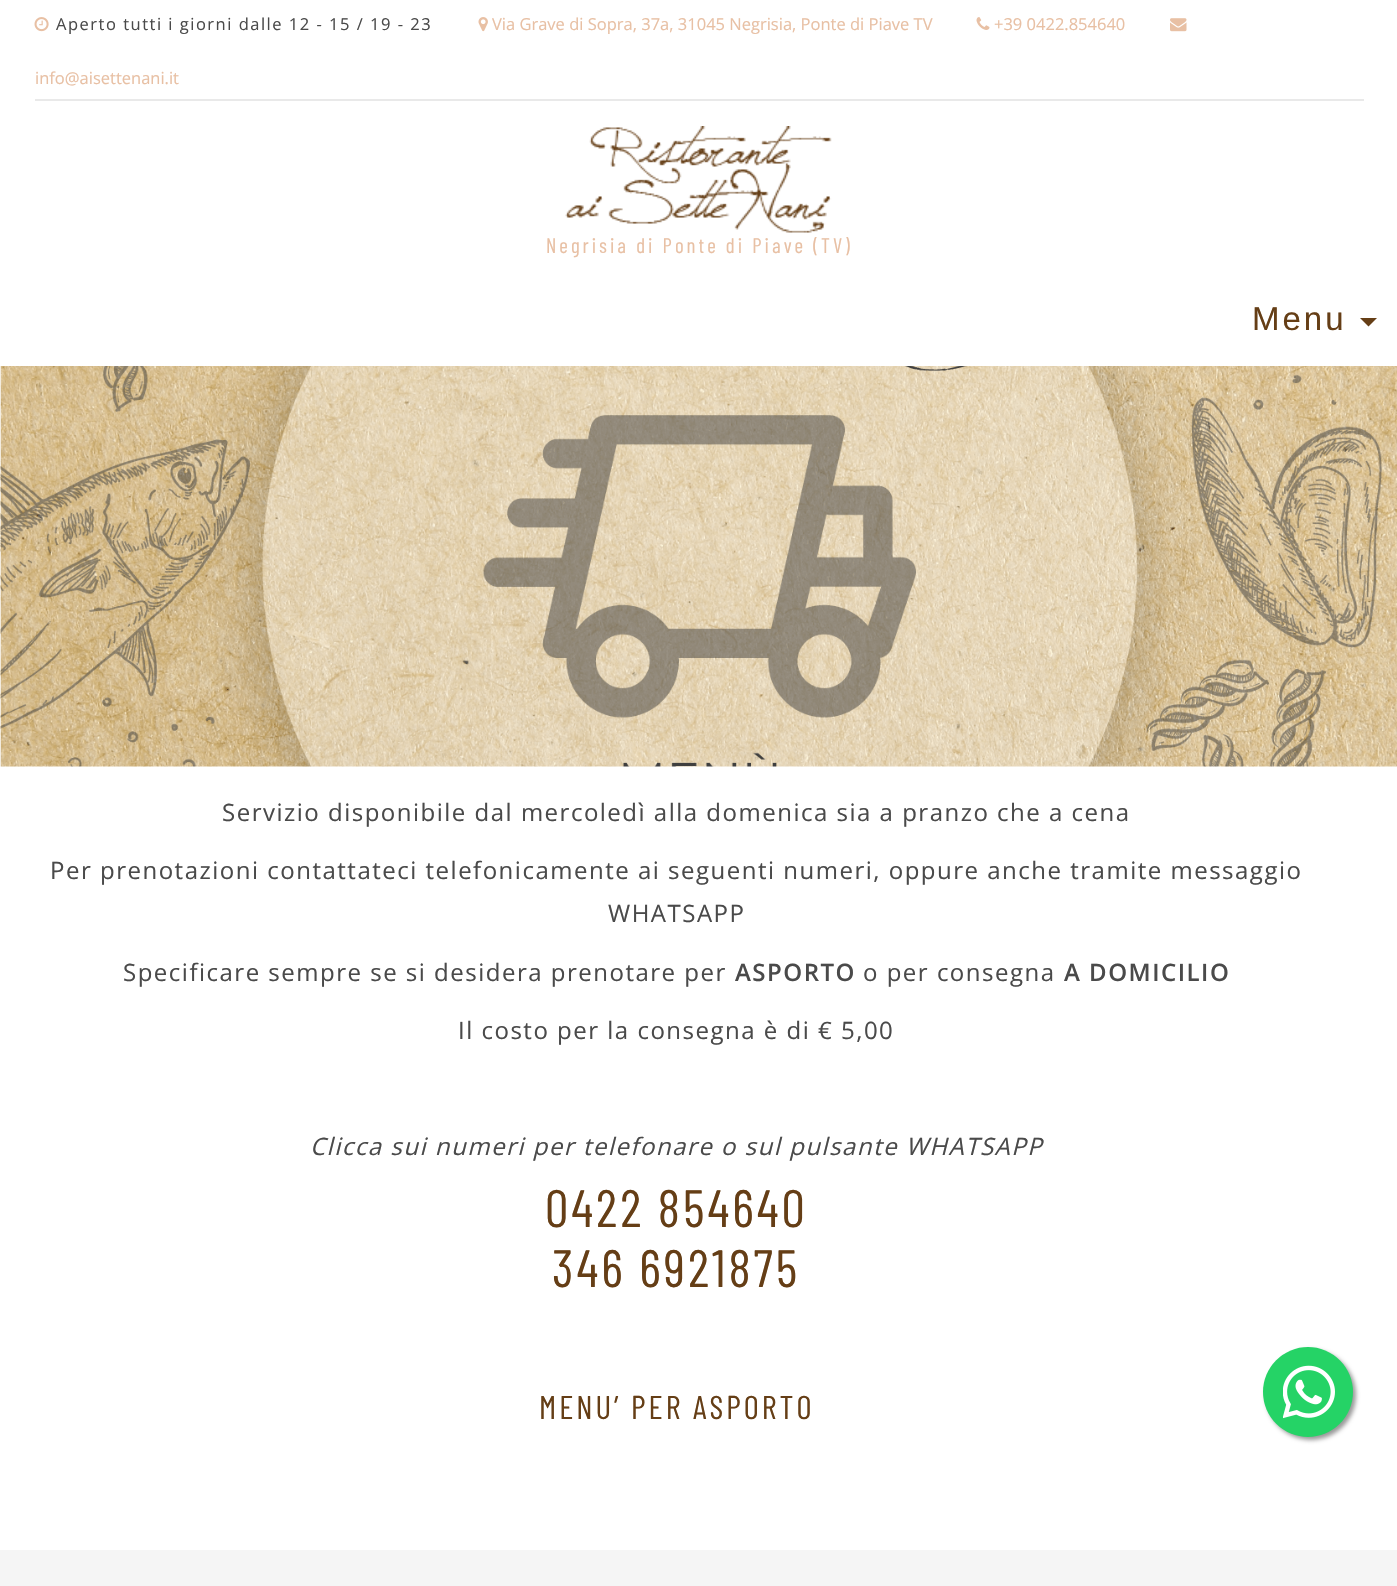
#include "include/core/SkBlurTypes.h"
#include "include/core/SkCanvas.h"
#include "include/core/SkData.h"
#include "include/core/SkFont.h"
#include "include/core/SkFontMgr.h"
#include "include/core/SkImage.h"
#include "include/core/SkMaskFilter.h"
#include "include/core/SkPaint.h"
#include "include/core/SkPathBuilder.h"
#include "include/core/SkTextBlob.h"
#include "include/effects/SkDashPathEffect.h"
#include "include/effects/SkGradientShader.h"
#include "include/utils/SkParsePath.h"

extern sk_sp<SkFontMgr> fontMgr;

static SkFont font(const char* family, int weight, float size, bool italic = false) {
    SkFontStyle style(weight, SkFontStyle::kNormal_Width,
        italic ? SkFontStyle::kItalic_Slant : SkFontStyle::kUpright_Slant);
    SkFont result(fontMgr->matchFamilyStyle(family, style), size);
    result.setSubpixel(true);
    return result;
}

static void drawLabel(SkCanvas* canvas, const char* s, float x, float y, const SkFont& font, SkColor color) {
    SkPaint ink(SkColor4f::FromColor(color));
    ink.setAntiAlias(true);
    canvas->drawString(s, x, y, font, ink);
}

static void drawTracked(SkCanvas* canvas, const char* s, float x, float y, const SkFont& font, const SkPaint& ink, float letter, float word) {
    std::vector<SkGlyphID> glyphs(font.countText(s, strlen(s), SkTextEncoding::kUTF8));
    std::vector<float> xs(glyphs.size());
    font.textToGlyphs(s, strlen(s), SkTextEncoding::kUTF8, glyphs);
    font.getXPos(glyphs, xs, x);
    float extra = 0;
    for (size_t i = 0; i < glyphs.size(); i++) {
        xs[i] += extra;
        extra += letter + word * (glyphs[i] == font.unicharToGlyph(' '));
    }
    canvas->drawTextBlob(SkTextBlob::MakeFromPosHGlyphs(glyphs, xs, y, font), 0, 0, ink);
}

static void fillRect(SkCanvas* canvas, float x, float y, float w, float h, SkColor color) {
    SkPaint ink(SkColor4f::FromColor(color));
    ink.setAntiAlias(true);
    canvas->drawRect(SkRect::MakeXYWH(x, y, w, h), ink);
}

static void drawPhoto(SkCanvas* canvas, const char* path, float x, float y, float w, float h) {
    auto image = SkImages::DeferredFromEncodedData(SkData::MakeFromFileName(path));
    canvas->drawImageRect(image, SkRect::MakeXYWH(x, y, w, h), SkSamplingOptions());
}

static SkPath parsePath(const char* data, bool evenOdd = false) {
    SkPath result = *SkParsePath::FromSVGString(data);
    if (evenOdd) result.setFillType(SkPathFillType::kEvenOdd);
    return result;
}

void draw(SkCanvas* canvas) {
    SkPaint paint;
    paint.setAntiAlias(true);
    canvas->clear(0xFFFFFFFF);
    fillRect(canvas, 35, 99, 1329, 2, 0xFFE9E9E9);
    drawPhoto(canvas, "assets/img1.png", 34, 17, 15, 15);
    SkFont font1 = font("Open Sans", 400, 16.5f);
    paint.setColor(0xFF4A4A4A);
    drawTracked(canvas, "Aperto tutti i giorni dalle 12 - 15 / 19 - 23", 56, 30, font1, paint, 1.5f, 0);
    drawPhoto(canvas, "assets/img2.png", 478, 17, 10, 15);
    drawLabel(canvas, "Via Grave di Sopra, 37a, 31045 Negrisia, Ponte di Piave TV", 492, 30, font1, 0xFFE8C0A4);
    drawPhoto(canvas, "assets/img3.png", 976, 17, 14, 13);
    drawLabel(canvas, "+39 0422.854640", 994, 30, font1, 0xFFE8C0A4);
    drawPhoto(canvas, "assets/img4.png", 1170, 18, 17, 14);
    drawLabel(canvas, "info@aisettenani.it", 35, 84, font1, 0xFFE8C0A4);
    drawPhoto(canvas, "assets/img5.png", 565, 126, 267, 107);
    SkFont font2 = font("Barlow Condensed", 400, 21);
    paint.setColor(0xFFE8C0A4);
    drawTracked(canvas, "Negrisia di Ponte di Piave (TV)", 546, 253, font2, paint, 3, 0);
    SkFont font3 = font("Liberation Sans", 400, 33);
    paint.setColor(0xFF653E16);
    drawTracked(canvas, "Menu", 1252, 330, font3, paint, 3, 0);
    canvas->drawPath(parsePath("M1360 318L1368.5 326.5L1377 318Z"), paint);
    drawPhoto(canvas, "assets/img6.png", 0, 366, 1397, 401);
    SkFont font4 = font("Open Sans", 400, 24);
    paint.setColor(0xFF4A4A4A);
    drawTracked(canvas, "Servizio disponibile dal mercoledì alla domenica sia a pranzo che a cena", 222, 821, font4, paint, 1.5f, 0);
    drawTracked(canvas, "Per prenotazioni contattateci telefonicamente ai seguenti numeri, oppure anche tramite messaggio", 50, 879, font4, paint, 1.5f, 0);
    drawTracked(canvas, "WHATSAPP", 608, 922, font4, paint, 1.5f, 0);
    drawTracked(canvas, "Specificare sempre se si desidera prenotare per", 123, 981, font4, paint, 1.5f, 0);
    SkFont font5 = font("Open Sans", 600, 24);
    drawTracked(canvas, "ASPORTO", 735, 981, font5, paint, 1.5f, 0);
    drawTracked(canvas, "o per consegna", 863, 981, font4, paint, 1.5f, 0);
    drawTracked(canvas, "A DOMICILIO", 1064, 981, font5, paint, 1.5f, 0);
    drawTracked(canvas, "Il costo per la consegna è di € 5,00", 458, 1039, font4, paint, 1.5f, 0);
    SkFont font6 = font("Open Sans", 400, 24, true);
    drawTracked(canvas, "Clicca sui numeri per telefonare o sul pulsante WHATSAPP", 310, 1155, font6, paint, 1.5f, 0);
    SkFont font7 = font("Barlow Condensed", 400, 52.5f);
    paint.setColor(0xFF653E16);
    drawTracked(canvas, "0422 854640", 545, 1227, font7, paint, 3, 0);
    drawTracked(canvas, "346 6921875", 552, 1287, font7, paint, 3, 0);
    SkFont font8 = font("Barlow Condensed", 400, 33);
    drawTracked(canvas, "MENU’ PER ASPORTO", 539, 1419, font8, paint, 3, 0);
    fillRect(canvas, 0, 1550, 1397, 36, 0xFFF5F5F5);
    paint.setColor(0xFF999999);
    paint.setMaskFilter(SkMaskFilter::MakeBlur(kNormal_SkBlurStyle, 2));
    canvas->drawRoundRect(SkRect::MakeXYWH(1266, 1350, 90, 90), 45, 45, paint);
    paint.setMaskFilter(nullptr);
    paint.setColor(0xFF25D366);
    canvas->drawCircle(1308, 1392, 45, paint);
    drawPhoto(canvas, "assets/img7.png", 1283, 1365, 52, 54);
}
